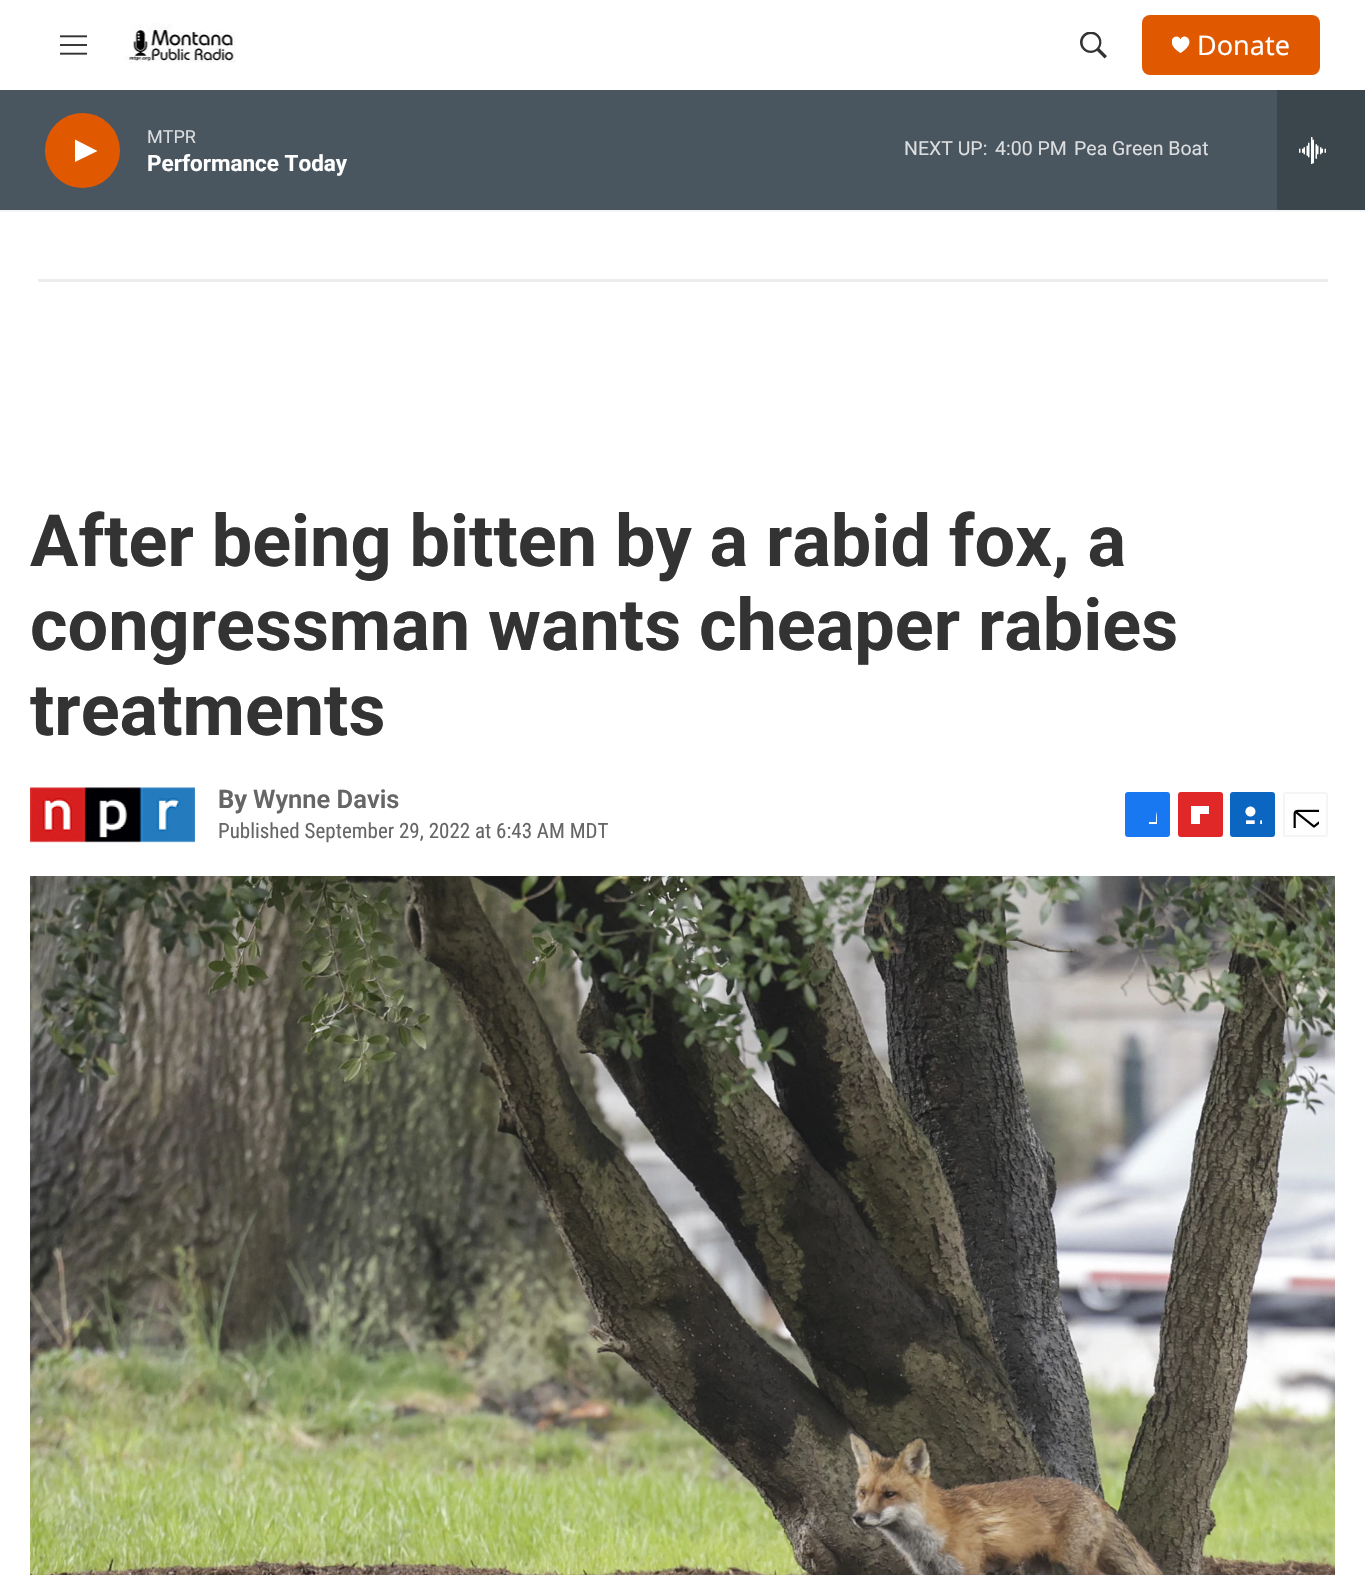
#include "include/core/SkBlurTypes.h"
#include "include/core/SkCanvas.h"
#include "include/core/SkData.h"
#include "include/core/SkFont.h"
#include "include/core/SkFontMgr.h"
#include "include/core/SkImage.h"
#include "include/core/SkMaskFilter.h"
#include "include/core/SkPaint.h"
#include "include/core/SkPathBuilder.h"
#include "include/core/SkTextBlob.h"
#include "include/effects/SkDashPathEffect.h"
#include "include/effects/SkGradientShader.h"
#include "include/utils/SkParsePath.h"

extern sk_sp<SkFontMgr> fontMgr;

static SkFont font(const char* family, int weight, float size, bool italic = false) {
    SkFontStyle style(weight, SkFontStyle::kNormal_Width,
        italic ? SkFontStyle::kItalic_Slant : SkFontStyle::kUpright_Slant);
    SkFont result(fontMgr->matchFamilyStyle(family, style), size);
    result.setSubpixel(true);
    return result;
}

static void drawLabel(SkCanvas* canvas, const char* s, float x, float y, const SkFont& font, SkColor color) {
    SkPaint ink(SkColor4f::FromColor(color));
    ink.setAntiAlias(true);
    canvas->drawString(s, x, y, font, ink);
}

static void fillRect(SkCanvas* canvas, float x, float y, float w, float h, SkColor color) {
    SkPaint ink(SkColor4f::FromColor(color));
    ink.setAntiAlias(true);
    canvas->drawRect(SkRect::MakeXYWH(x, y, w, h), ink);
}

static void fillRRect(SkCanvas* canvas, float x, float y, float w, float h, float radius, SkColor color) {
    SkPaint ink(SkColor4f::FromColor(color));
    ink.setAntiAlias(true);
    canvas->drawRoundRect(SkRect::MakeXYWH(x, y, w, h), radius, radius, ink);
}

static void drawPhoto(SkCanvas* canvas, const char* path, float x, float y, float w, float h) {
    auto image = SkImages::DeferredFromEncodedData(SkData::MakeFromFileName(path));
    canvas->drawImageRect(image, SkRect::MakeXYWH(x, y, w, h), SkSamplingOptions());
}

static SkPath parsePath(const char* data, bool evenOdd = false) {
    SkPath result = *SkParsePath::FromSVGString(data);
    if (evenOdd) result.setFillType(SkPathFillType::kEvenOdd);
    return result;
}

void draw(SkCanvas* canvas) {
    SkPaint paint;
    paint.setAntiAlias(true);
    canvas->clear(0xFFFFFFFF);
    fillRect(canvas, 0, 210, 1365, 2, 0xFFF5F5F5);
    drawPhoto(canvas, "assets/img1.png", 60, 35, 27, 20);
    drawPhoto(canvas, "assets/img2.png", 124, 23, 112, 40);
    drawPhoto(canvas, "assets/img3.png", 1080, 32, 27, 27);
    fillRRect(canvas, 1142, 15, 178, 60, 8, 0xFFE05900);
    canvas->save();
    canvas->clipRect(SkRect::MakeXYWH(1172, 36, 18, 18));
    paint.setColor(0xFFFFFFFF);
    canvas->drawPath(parsePath("M1180.5 39.5C1177.5 31.5 1162 41.5 1180.5 53C1199 41.5 1183.5 31.5 1180.5 39.5Z"), paint);
    canvas->restore();
    SkFont font1 = font("Noto Sans", 400, 27);
    drawLabel(canvas, "Donate", 1197, 55, font1, 0xFFFFFFFF);
    fillRect(canvas, 0, 90, 1277, 120, 0xFF4A565F);
    paint.setColor(0xFFE05900);
    canvas->drawCircle(82.5f, 150.5f, 37.5f, paint);
    paint.setColor(0xFFFFFFFF);
    canvas->drawPath(parsePath("M75 139.5L97.5 151L75 162Z"), paint);
    SkFont font2 = font("Roboto", 400, 18);
    drawLabel(canvas, "MTPR", 147, 143, font2, 0xFFDBDDDF);
    SkFont font3 = font("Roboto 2", 700, 22.5f);
    drawLabel(canvas, "Performance Today", 147, 171, font3, 0xFFFFFFFF);
    SkFont font4 = font("Roboto", 400, 19.5f);
    drawLabel(canvas, "NEXT UP:", 904, 155, font4, 0xFFDBDDDF);
    drawLabel(canvas, "4:00 PM", 995, 155, font4, 0xFFDBDDDF);
    drawLabel(canvas, "Pea Green Boat", 1074, 155, font4, 0xFFDBDDDF);
    fillRect(canvas, 1277, 90, 88, 120, 0xFF3B454C);
    drawPhoto(canvas, "assets/img4.png", 1299, 137, 27, 27);
    fillRect(canvas, 38, 279, 1290, 3, 0xFFECECEC);
    SkFont font5 = font("Roboto", 700, 72);
    drawLabel(canvas, "After being bitten by a rabid fox, a", 30, 566, font5, 0xFF333333);
    drawLabel(canvas, "congressman wants cheaper rabies", 30, 650, font5, 0xFF333333);
    drawLabel(canvas, "treatments", 30, 735, font5, 0xFF333333);
    drawPhoto(canvas, "assets/img5.png", 30, 787, 165, 56);
    SkFont font6 = font("Roboto", 700, 25.5f);
    drawLabel(canvas, "By", 218, 808, font6, 0xFF666666);
    SkFont font7 = font("Roboto", 600, 25.5f);
    drawLabel(canvas, "Wynne Davis", 253, 808, font7, 0xFF666666);
    SkFont font8 = font("Roboto Condensed", 400, 21);
    drawLabel(canvas, "Published September 29, 2022 at 6:43 AM MDT", 218, 838, font8, 0xFF666666);
    fillRRect(canvas, 1125, 792, 45, 45, 3, 0xFF1778F2);
    canvas->save();
    canvas->clipRect(SkRect::MakeXYWH(1139, 806, 18, 18));
    canvas->drawPath(parsePath("M1163 837H1156V830H1149V822H1156C1156 810.5 1157 804.5 1170 806V813C1162 813 1163 815.5 1163 822H1170L1169 830H1163Z"), paint);
    canvas->restore();
    fillRRect(canvas, 1178, 792, 45, 45, 3, 0xFFE12828);
    canvas->save();
    canvas->clipRect(SkRect::MakeXYWH(1191, 806, 18, 18));
    canvas->drawPath(parsePath("M1191 806V837H1200V814H1223V806ZM1223 824H1218V832H1209V837C1224.5 837 1223 839.5 1223 824Z", true), paint);
    canvas->restore();
    fillRRect(canvas, 1230, 792, 45, 45, 3, 0xFF0A66C1);
    drawPhoto(canvas, "assets/img6.png", 1245, 806, 17, 18);
    paint.setStroke(true);
    paint.setStrokeWidth(2);
    paint.setColor(0xFFF5F5F5);
    canvas->drawRoundRect(SkRect::MakeXYWH(1284, 793, 43, 43), 2, 2, paint);
    drawPhoto(canvas, "assets/img7.png", 1293, 809, 26, 19);
    drawPhoto(canvas, "assets/img8.png", 30, 876, 1305, 699);
}
